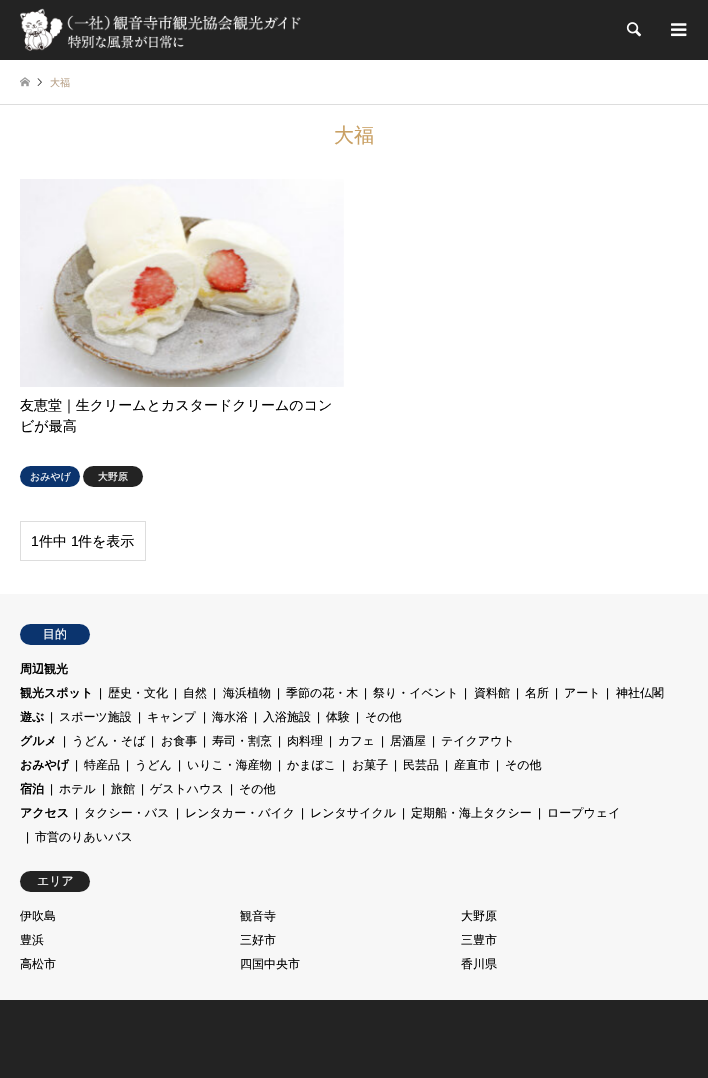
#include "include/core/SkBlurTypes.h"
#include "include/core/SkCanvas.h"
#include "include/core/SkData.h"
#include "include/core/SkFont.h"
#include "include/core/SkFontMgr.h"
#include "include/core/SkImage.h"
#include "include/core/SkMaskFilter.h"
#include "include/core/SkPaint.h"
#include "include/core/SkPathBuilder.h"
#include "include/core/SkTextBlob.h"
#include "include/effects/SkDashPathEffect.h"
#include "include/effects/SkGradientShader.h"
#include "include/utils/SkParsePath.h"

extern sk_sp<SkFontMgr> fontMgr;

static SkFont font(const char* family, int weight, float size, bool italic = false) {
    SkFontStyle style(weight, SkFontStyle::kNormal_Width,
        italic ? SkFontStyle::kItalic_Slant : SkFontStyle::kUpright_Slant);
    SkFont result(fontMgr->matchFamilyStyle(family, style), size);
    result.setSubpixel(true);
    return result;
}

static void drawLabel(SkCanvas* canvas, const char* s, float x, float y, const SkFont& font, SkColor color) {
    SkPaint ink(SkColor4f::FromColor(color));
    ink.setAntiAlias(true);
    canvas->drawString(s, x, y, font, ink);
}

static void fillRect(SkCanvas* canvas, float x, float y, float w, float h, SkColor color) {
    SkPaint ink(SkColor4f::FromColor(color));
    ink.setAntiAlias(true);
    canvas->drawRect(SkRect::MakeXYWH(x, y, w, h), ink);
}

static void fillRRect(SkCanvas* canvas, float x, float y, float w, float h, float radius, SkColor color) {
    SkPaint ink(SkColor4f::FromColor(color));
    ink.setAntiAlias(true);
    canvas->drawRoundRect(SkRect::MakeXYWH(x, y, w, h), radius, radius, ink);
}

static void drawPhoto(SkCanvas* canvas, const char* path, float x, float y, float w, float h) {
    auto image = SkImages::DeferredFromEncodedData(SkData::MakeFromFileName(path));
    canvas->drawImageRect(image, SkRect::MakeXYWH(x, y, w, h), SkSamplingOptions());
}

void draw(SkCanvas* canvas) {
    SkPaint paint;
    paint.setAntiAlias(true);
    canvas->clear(0xFFFFFFFF);
    fillRect(canvas, 0, 0, 708, 60, 0xFF232323);
    drawPhoto(canvas, "assets/img1.png", 20, 8, 281, 43);
    drawPhoto(canvas, "assets/img2.png", 626, 22, 16, 15);
    drawPhoto(canvas, "assets/img3.png", 671, 23, 16, 14);
    fillRect(canvas, 0, 104, 708, 1, 0xFFDDDDDD);
    drawPhoto(canvas, "assets/img4.png", 20, 77, 10, 10);
    drawPhoto(canvas, "assets/img5.png", 37, 78, 5, 8);
    SkFont font1 = font("WenQuanYi Zen Hei", 500, 10);
    drawLabel(canvas, "大福", 50, 86, font1, 0xFFB69E84);
    SkFont font2 = font("WenQuanYi Zen Hei", 500, 20);
    drawLabel(canvas, "大福", 334, 142, font2, 0xFFC9A063);
    drawPhoto(canvas, "assets/img6.png", 20, 179, 324, 208);
    SkFont font3 = font("WenQuanYi Zen Hei", 500, 14);
    drawLabel(canvas, "友恵堂｜生クリームとカスタードクリームのコン", 20, 410, font3, 0xFF000000);
    drawLabel(canvas, "ビが最高", 20, 431, font3, 0xFF000000);
    fillRRect(canvas, 20, 466, 60, 21, 10.5f, 0xFF0B346E);
    drawLabel(canvas, "おみやげ", 30, 480, font1, 0xFFFFFFFF);
    fillRRect(canvas, 83, 466, 60, 21, 10.5f, 0xFF232323);
    drawLabel(canvas, "大野原", 98, 480, font1, 0xFFFFFFFF);
    paint.setStroke(true);
    paint.setStrokeWidth(1);
    paint.setColor(0xFFDDDDDD);
    canvas->drawRect(SkRect::MakeXYWH(20.5f, 521.5f, 125, 39), paint);
    SkFont font4 = font("Liberation Sans", 400, 14);
    drawLabel(canvas, "1", 31, 546, font4, 0xFF000000);
    drawLabel(canvas, "件中", 39, 546, font3, 0xFF000000);
    drawLabel(canvas, "1", 71, 546, font4, 0xFF000000);
    drawLabel(canvas, "件を表示", 78, 546, font3, 0xFF000000);
    fillRect(canvas, 0, 594, 708, 406, 0xFFF7F7F7);
    fillRRect(canvas, 20, 624, 70, 21, 10.5f, 0xFF0B346E);
    SkFont font5 = font("WenQuanYi Zen Hei", 500, 12);
    drawLabel(canvas, "目的", 43, 638, font5, 0xFFFFFFFF);
    SkFont font6 = font("WenQuanYi Zen Hei", 700, 12);
    drawLabel(canvas, "周辺観光", 20, 673, font6, 0xFF000000);
    drawLabel(canvas, "観光スポット", 20, 697, font6, 0xFF000000);
    SkFont font7 = font("Liberation Sans", 400, 12);
    drawLabel(canvas, "|", 99, 697, font7, 0xFF000000);
    drawLabel(canvas, "歴史・文化", 108, 697, font5, 0xFF000000);
    drawLabel(canvas, "|", 174, 697, font7, 0xFF000000);
    drawLabel(canvas, "自然", 183, 697, font5, 0xFF000000);
    drawLabel(canvas, "|", 213, 697, font7, 0xFF000000);
    drawLabel(canvas, "海浜植物", 223, 697, font5, 0xFF000000);
    drawLabel(canvas, "|", 277, 697, font7, 0xFF000000);
    drawLabel(canvas, "季節の花・木", 286, 697, font5, 0xFF000000);
    drawLabel(canvas, "|", 364, 697, font7, 0xFF000000);
    drawLabel(canvas, "祭り・イベント", 373, 697, font5, 0xFF000000);
    drawLabel(canvas, "|", 464, 697, font7, 0xFF000000);
    drawLabel(canvas, "資料館", 474, 697, font5, 0xFF000000);
    drawLabel(canvas, "|", 516, 697, font7, 0xFF000000);
    drawLabel(canvas, "名所", 525, 697, font5, 0xFF000000);
    drawLabel(canvas, "|", 555, 697, font7, 0xFF000000);
    drawLabel(canvas, "アート", 564, 697, font5, 0xFF000000);
    drawLabel(canvas, "|", 606, 697, font7, 0xFF000000);
    drawLabel(canvas, "神社仏閣", 616, 697, font5, 0xFF000000);
    drawLabel(canvas, "遊ぶ", 20, 721, font6, 0xFF000000);
    drawLabel(canvas, "|", 50, 721, font7, 0xFF000000);
    drawLabel(canvas, "スポーツ施設", 59, 721, font5, 0xFF000000);
    drawLabel(canvas, "|", 138, 721, font7, 0xFF000000);
    drawLabel(canvas, "キャンプ", 147, 721, font5, 0xFF000000);
    drawLabel(canvas, "|", 203, 721, font7, 0xFF000000);
    drawLabel(canvas, "海水浴", 212, 721, font5, 0xFF000000);
    drawLabel(canvas, "|", 254, 721, font7, 0xFF000000);
    drawLabel(canvas, "入浴施設", 263, 721, font5, 0xFF000000);
    drawLabel(canvas, "|", 317, 721, font7, 0xFF000000);
    drawLabel(canvas, "体験", 326, 721, font5, 0xFF000000);
    drawLabel(canvas, "|", 356, 721, font7, 0xFF000000);
    drawLabel(canvas, "その他", 365, 721, font5, 0xFF000000);
    drawLabel(canvas, "グルメ", 20, 745, font6, 0xFF000000);
    drawLabel(canvas, "|", 63, 745, font7, 0xFF000000);
    drawLabel(canvas, "うどん・そば", 72, 745, font5, 0xFF000000);
    drawLabel(canvas, "|", 151, 745, font7, 0xFF000000);
    drawLabel(canvas, "お食事", 161, 745, font5, 0xFF000000);
    drawLabel(canvas, "|", 203, 745, font7, 0xFF000000);
    drawLabel(canvas, "寿司・割烹", 212, 745, font5, 0xFF000000);
    drawLabel(canvas, "|", 278, 745, font7, 0xFF000000);
    drawLabel(canvas, "肉料理", 287, 745, font5, 0xFF000000);
    drawLabel(canvas, "|", 329, 745, font7, 0xFF000000);
    drawLabel(canvas, "カフェ", 338, 745, font5, 0xFF000000);
    drawLabel(canvas, "|", 381, 745, font7, 0xFF000000);
    drawLabel(canvas, "居酒屋", 390, 745, font5, 0xFF000000);
    drawLabel(canvas, "|", 432, 745, font7, 0xFF000000);
    drawLabel(canvas, "テイクアウト", 441, 745, font5, 0xFF000000);
    drawLabel(canvas, "おみやげ", 20, 769, font6, 0xFF000000);
    drawLabel(canvas, "|", 75, 769, font7, 0xFF000000);
    drawLabel(canvas, "特産品", 84, 769, font5, 0xFF000000);
    drawLabel(canvas, "|", 126, 769, font7, 0xFF000000);
    drawLabel(canvas, "うどん", 135, 769, font5, 0xFF000000);
    drawLabel(canvas, "|", 178, 769, font7, 0xFF000000);
    drawLabel(canvas, "いりこ・海産物", 187, 769, font5, 0xFF000000);
    drawLabel(canvas, "|", 278, 769, font7, 0xFF000000);
    drawLabel(canvas, "かまぼこ", 287, 769, font5, 0xFF000000);
    drawLabel(canvas, "|", 342, 769, font7, 0xFF000000);
    drawLabel(canvas, "お菓子", 352, 769, font5, 0xFF000000);
    drawLabel(canvas, "|", 394, 769, font7, 0xFF000000);
    drawLabel(canvas, "民芸品", 403, 769, font5, 0xFF000000);
    drawLabel(canvas, "|", 445, 769, font7, 0xFF000000);
    drawLabel(canvas, "産直市", 454, 769, font5, 0xFF000000);
    drawLabel(canvas, "|", 496, 769, font7, 0xFF000000);
    drawLabel(canvas, "その他", 505, 769, font5, 0xFF000000);
    drawLabel(canvas, "宿泊", 20, 793, font6, 0xFF000000);
    drawLabel(canvas, "|", 50, 793, font7, 0xFF000000);
    drawLabel(canvas, "ホテル", 59, 793, font5, 0xFF000000);
    drawLabel(canvas, "|", 102, 793, font7, 0xFF000000);
    drawLabel(canvas, "旅館", 111, 793, font5, 0xFF000000);
    drawLabel(canvas, "|", 141, 793, font7, 0xFF000000);
    drawLabel(canvas, "ゲストハウス", 150, 793, font5, 0xFF000000);
    drawLabel(canvas, "|", 230, 793, font7, 0xFF000000);
    drawLabel(canvas, "その他", 239, 793, font5, 0xFF000000);
    drawLabel(canvas, "|", 75, 817, font7, 0xFF000000);
    drawLabel(canvas, "タクシー・バス", 84, 817, font5, 0xFF000000);
    drawLabel(canvas, "|", 176, 817, font7, 0xFF000000);
    drawLabel(canvas, "レンタカー・バイク", 185, 817, font5, 0xFF000000);
    drawLabel(canvas, "|", 301, 817, font7, 0xFF000000);
    drawLabel(canvas, "レンタサイクル", 310, 817, font5, 0xFF000000);
    drawLabel(canvas, "|", 402, 817, font7, 0xFF000000);
    drawLabel(canvas, "定期船・海上タクシー", 411, 817, font5, 0xFF000000);
    drawLabel(canvas, "|", 538, 817, font7, 0xFF000000);
    drawLabel(canvas, "ロープウェイ", 547, 817, font5, 0xFF000000);
    drawLabel(canvas, "|", 26, 841, font7, 0xFF000000);
    drawLabel(canvas, "市営のりあいバス", 35, 841, font5, 0xFF000000);
    drawLabel(canvas, "アクセス", 20, 817, font6, 0xFF000000);
    fillRRect(canvas, 20, 871, 70, 21, 10.5f, 0xFF232323);
    drawLabel(canvas, "エリア", 37, 885, font5, 0xFFFFFFFF);
    drawLabel(canvas, "伊吹島", 20, 920, font5, 0xFF000000);
    drawLabel(canvas, "観音寺", 240, 920, font5, 0xFF000000);
    drawLabel(canvas, "大野原", 461, 920, font5, 0xFF000000);
    drawLabel(canvas, "豊浜", 20, 944, font5, 0xFF000000);
    drawLabel(canvas, "三好市", 240, 944, font5, 0xFF000000);
    drawLabel(canvas, "三豊市", 461, 944, font5, 0xFF000000);
    drawLabel(canvas, "高松市", 20, 968, font5, 0xFF000000);
    drawLabel(canvas, "四国中央市", 240, 968, font5, 0xFF000000);
    drawLabel(canvas, "香川県", 461, 968, font5, 0xFF000000);
    fillRect(canvas, 0, 1000, 708, 78, 0xFF232323);
}
